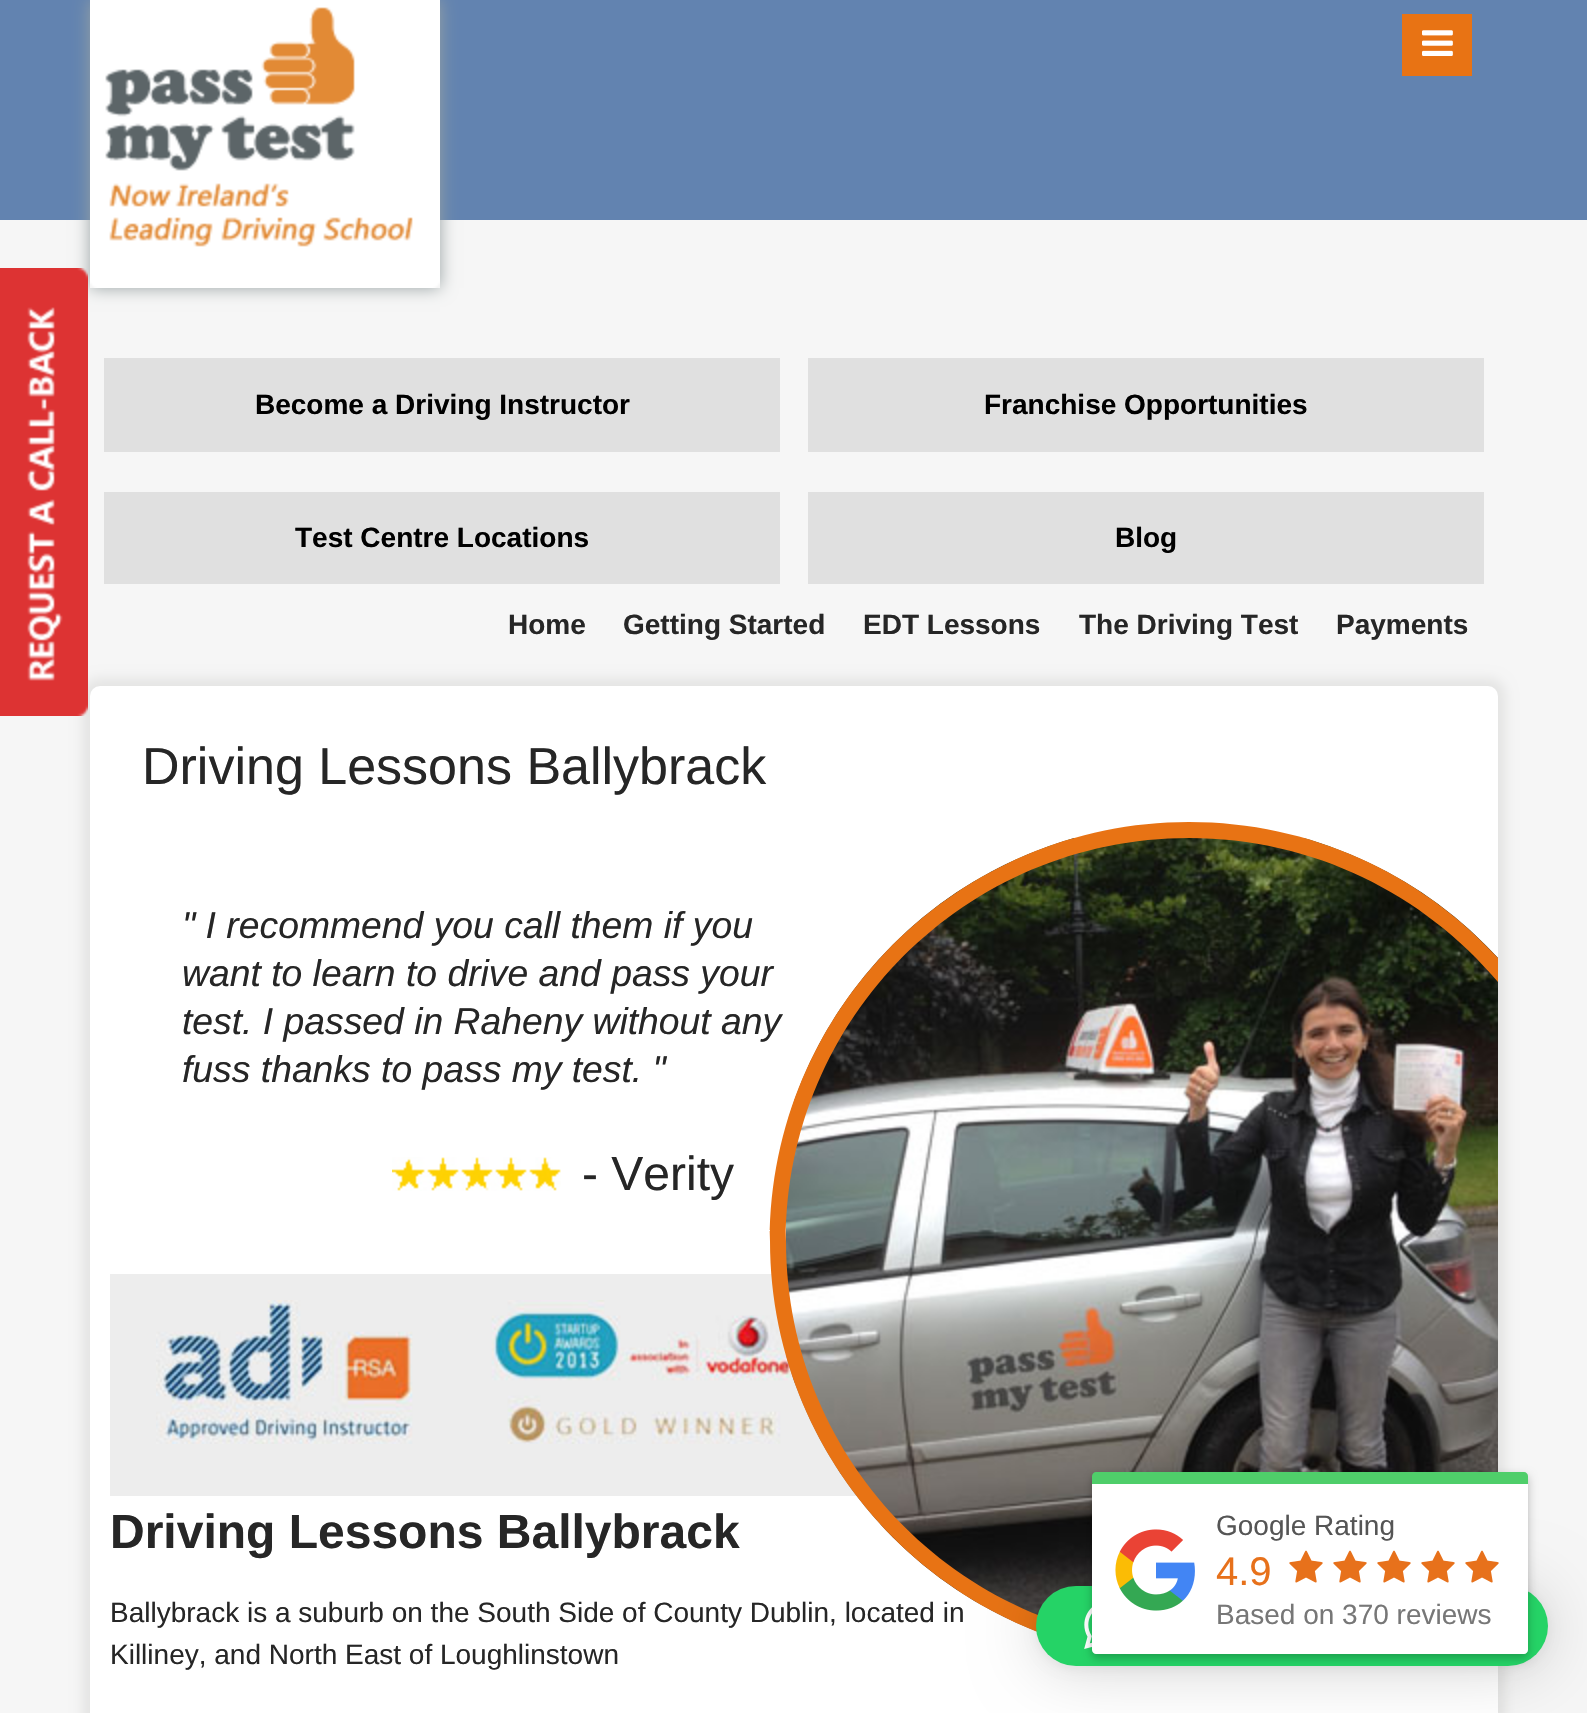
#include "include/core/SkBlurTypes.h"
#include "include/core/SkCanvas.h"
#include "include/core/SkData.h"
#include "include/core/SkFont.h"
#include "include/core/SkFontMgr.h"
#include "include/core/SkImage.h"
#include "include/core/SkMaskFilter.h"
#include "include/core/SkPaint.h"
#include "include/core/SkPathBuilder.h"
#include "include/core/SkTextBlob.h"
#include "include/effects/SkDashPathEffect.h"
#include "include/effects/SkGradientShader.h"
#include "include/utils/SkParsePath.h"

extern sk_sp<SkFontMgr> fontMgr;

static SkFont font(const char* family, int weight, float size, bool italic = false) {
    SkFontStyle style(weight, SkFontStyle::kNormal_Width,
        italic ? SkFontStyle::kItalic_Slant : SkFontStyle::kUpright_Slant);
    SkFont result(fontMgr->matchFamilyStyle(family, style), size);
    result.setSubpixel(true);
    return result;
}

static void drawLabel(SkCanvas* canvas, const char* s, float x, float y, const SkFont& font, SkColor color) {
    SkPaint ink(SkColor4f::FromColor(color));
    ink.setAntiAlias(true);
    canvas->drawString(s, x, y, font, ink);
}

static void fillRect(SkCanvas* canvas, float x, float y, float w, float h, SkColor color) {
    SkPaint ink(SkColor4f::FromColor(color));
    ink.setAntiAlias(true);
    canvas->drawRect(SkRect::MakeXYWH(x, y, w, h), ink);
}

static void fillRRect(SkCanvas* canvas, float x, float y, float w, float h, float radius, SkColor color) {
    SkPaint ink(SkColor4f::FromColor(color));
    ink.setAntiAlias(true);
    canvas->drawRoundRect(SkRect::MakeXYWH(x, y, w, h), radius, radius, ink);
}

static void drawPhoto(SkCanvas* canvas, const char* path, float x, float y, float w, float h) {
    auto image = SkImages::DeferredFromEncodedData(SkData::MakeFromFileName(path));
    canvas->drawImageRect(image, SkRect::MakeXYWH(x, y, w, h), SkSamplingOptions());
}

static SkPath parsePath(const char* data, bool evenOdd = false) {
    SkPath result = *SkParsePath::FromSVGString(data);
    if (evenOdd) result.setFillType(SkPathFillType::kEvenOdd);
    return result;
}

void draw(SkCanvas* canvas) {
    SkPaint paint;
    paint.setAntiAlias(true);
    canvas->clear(0xFFF6F6F6);
    fillRect(canvas, 0, 0, 1587, 220, 0xFF6283B0);
    canvas->save();
    canvas->clipPath(parsePath("M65 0H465V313H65ZM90 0H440V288H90Z", true), true);
    paint.setColor(0xFF98A2A3);
    paint.setMaskFilter(SkMaskFilter::MakeBlur(kNormal_SkBlurStyle, 8));
    canvas->drawRect(SkRect::MakeXYWH(90, 0, 350, 288), paint);
    paint.setMaskFilter(nullptr);
    canvas->restore();
    paint.setColor(0xFFE5E5E4);
    paint.setMaskFilter(SkMaskFilter::MakeBlur(kNormal_SkBlurStyle, 6));
    canvas->drawRoundRect(SkRect::MakeXYWH(82, 678, 1424, 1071), 18, 18, paint);
    paint.setMaskFilter(nullptr);
    drawPhoto(canvas, "assets/img1.png", 0, 268, 88, 448);
    fillRect(canvas, 1402, 14, 70, 62, 0xFFE87314);
    drawPhoto(canvas, "assets/img2.png", 1422, 30, 31, 26);
    drawPhoto(canvas, "assets/img3.png", 90, 0, 350, 288);
    fillRect(canvas, 104, 358, 676, 94, 0xFFE0E0E0);
    SkFont font1 = font("Liberation Sans", 700, 28);
    drawLabel(canvas, "Become a Driving Instructor", 255, 414, font1, 0xFF000000);
    fillRect(canvas, 808, 358, 676, 94, 0xFFE0E0E0);
    drawLabel(canvas, "Franchise Opportunities", 984, 414, font1, 0xFF000000);
    fillRect(canvas, 104, 492, 676, 92, 0xFFE0E0E0);
    drawLabel(canvas, "Test Centre Locations", 295, 547, font1, 0xFF000000);
    fillRect(canvas, 808, 492, 676, 92, 0xFFE0E0E0);
    drawLabel(canvas, "Blog", 1115, 547, font1, 0xFF000000);
    drawLabel(canvas, "Home", 508, 634, font1, 0xFF262626);
    drawLabel(canvas, "Getting Started", 623, 634, font1, 0xFF262626);
    drawLabel(canvas, "EDT Lessons", 863, 634, font1, 0xFF262626);
    drawLabel(canvas, "The Driving Test", 1079, 634, font1, 0xFF262626);
    drawLabel(canvas, "Payments", 1336, 634, font1, 0xFF262626);
    fillRRect(canvas, 90, 686, 1408, 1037, 10, 0xFFFFFFFF);
    SkFont font2 = font("Liberation Sans", 400, 52);
    drawLabel(canvas, "Driving Lessons Ballybrack", 142, 784, font2, 0xFF262626);
    SkFont font3 = font("Liberation Sans", 400, 37.3f, true);
    drawLabel(canvas, "\" I recommend you call them if you", 182, 938, font3, 0xFF262626);
    drawLabel(canvas, "want to learn to drive and pass your", 182, 986, font3, 0xFF262626);
    drawLabel(canvas, "test. I passed in Raheny without any", 182, 1034, font3, 0xFF262626);
    drawLabel(canvas, "fuss thanks to pass my test. \"", 182, 1082, font3, 0xFF262626);
    drawPhoto(canvas, "assets/img4.png", 392, 1157, 169, 34);
    SkFont font4 = font("Liberation Sans", 400, 48);
    drawLabel(canvas, "- Verity", 582, 1190, font4, 0xFF262626);
    fillRect(canvas, 110, 1274, 747, 222, 0xFFEDEDED);
    drawPhoto(canvas, "assets/img6.png", 156, 1300, 640, 144);
    SkFont font5 = font("Liberation Sans", 400, 28);
    drawLabel(canvas, "Ballybrack is a suburb on the South Side of County Dublin, located in", 110, 1622, font5, 0xFF262626);
    drawPhoto(canvas, "assets/img5.png", 786, 838, 712, 794);
    paint.setColor(0xFFE87314);
    canvas->drawPath(parsePath("M1189 822C958 822 770 1010 770 1241C770 1472 958 1660 1189 1660C1311 1660 1421 1608 1498 1524V1500C1424 1588 1313 1644 1189 1644C966 1644 786 1464 786 1241C786 1018 966 838 1189 838C1313 838 1424 894 1498 982V958C1421 874 1311 822 1189 822Z"), paint);
    SkFont font6 = font("Liberation Sans", 700, 48);
    drawLabel(canvas, "Driving Lessons Ballybrack", 110, 1548, font6, 0xFF262626);
    drawLabel(canvas, "Killiney, and North East of Loughlinstown", 110, 1664, font5, 0xFF262626);
    paint.setColor(0x29000000);
    paint.setMaskFilter(SkMaskFilter::MakeBlur(kNormal_SkBlurStyle, 32));
    canvas->drawRoundRect(SkRect::MakeXYWH(1036, 1590, 512, 80), 40, 40, paint);
    paint.setMaskFilter(nullptr);
    paint.setColor(0x0F000000);
    paint.setMaskFilter(SkMaskFilter::MakeBlur(kNormal_SkBlurStyle, 6));
    canvas->drawRoundRect(SkRect::MakeXYWH(1036, 1588, 512, 80), 40, 40, paint);
    paint.setMaskFilter(nullptr);
    fillRRect(canvas, 1036, 1586, 512, 80, 40, 0xFF25D366);
    drawPhoto(canvas, "assets/img7.png", 1084, 1607, 8, 42);
    paint.setColor(0x42000000);
    paint.setMaskFilter(SkMaskFilter::MakeBlur(kNormal_SkBlurStyle, 5));
    canvas->drawRoundRect(SkRect::MakeXYWH(1092, 1476, 436, 182), 4, 4, paint);
    paint.setMaskFilter(nullptr);
    paint.setColor(0xFF4FCE6A);
    canvas->drawPath(parsePath("M1096 1472H1524C1526 1472 1528 1474 1528 1476V1484H1092V1476C1092 1474 1094 1472 1096 1472Z"), paint);
    paint.setColor(0xFFFFFFFF);
    canvas->drawPath(parsePath("M1092 1484H1528V1650C1528 1652 1526 1654 1524 1654H1096C1094 1654 1092 1652 1092 1650Z"), paint);
    drawPhoto(canvas, "assets/img8.png", 1115, 1529, 80, 82);
    drawLabel(canvas, "Google Rating", 1216, 1535, font5, 0xFF555555);
    SkFont font7 = font("Liberation Sans", 400, 40);
    drawLabel(canvas, "4.9", 1216, 1585, font7, 0xFFE7711B);
    drawPhoto(canvas, "assets/img9.png", 1289, 1550, 34, 33);
    drawPhoto(canvas, "assets/img9.png", 1333, 1550, 34, 33);
    drawPhoto(canvas, "assets/img9.png", 1377, 1550, 34, 33);
    drawPhoto(canvas, "assets/img9.png", 1421, 1550, 34, 33);
    drawPhoto(canvas, "assets/img9.png", 1465, 1550, 34, 33);
    drawLabel(canvas, "Based on 370 reviews", 1216, 1624, font5, 0xFF777777);
}
